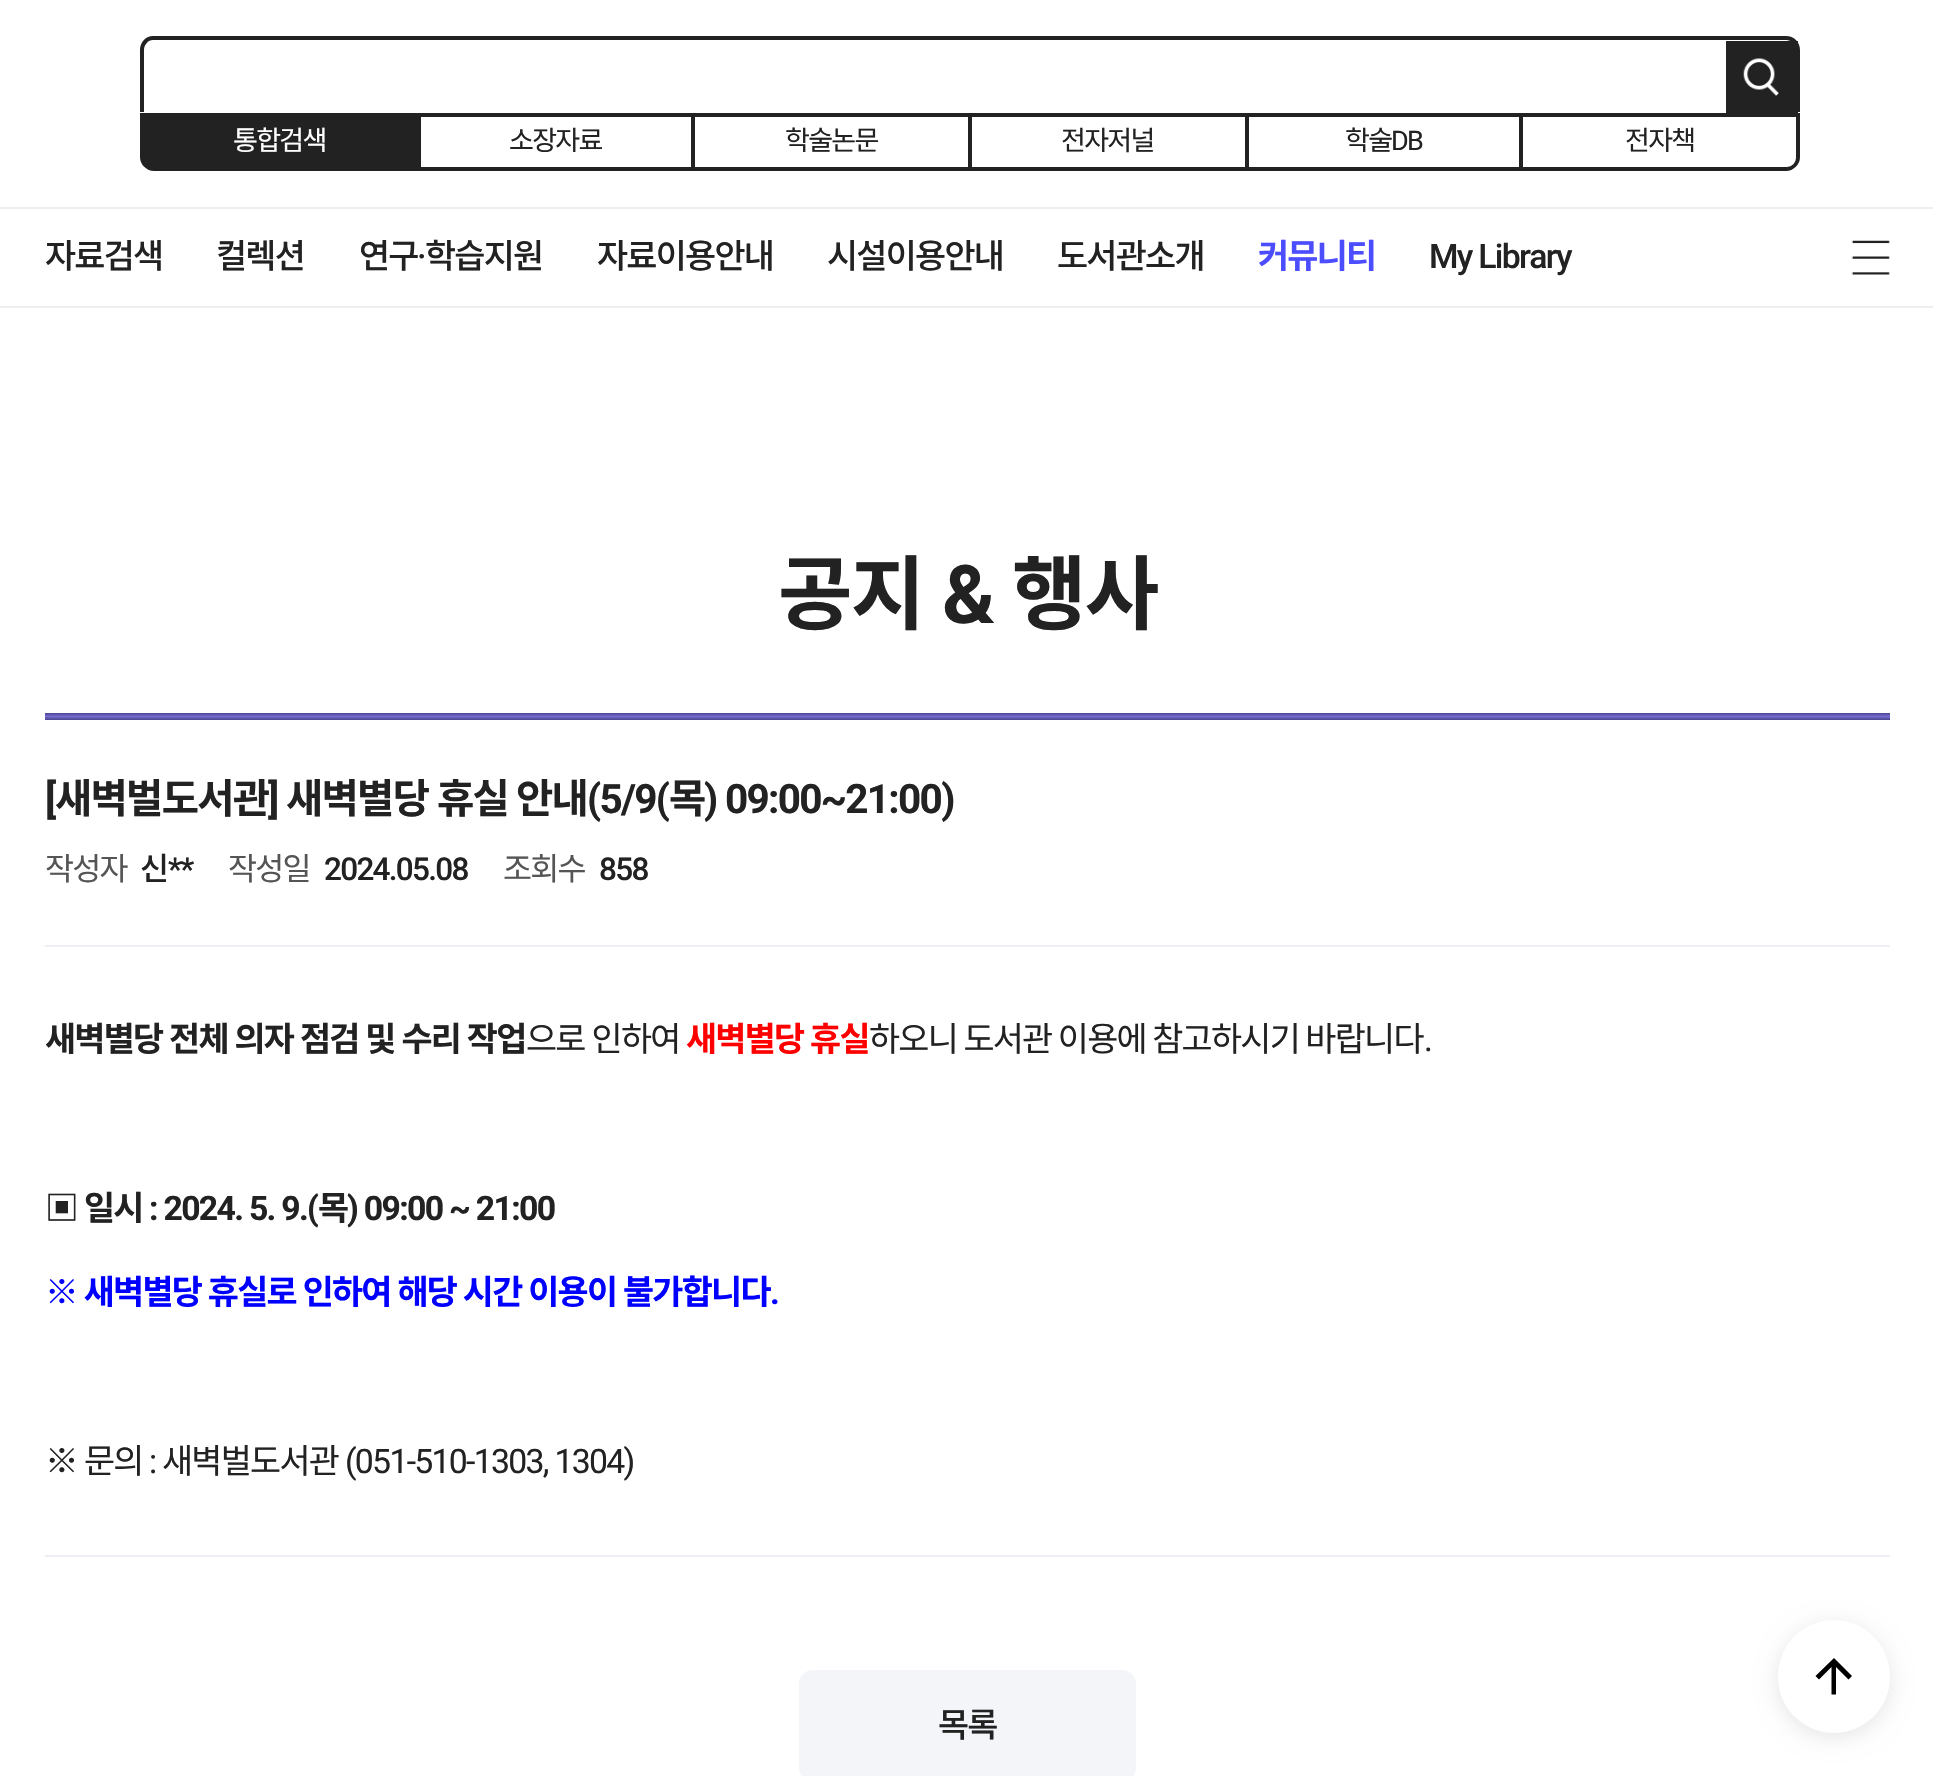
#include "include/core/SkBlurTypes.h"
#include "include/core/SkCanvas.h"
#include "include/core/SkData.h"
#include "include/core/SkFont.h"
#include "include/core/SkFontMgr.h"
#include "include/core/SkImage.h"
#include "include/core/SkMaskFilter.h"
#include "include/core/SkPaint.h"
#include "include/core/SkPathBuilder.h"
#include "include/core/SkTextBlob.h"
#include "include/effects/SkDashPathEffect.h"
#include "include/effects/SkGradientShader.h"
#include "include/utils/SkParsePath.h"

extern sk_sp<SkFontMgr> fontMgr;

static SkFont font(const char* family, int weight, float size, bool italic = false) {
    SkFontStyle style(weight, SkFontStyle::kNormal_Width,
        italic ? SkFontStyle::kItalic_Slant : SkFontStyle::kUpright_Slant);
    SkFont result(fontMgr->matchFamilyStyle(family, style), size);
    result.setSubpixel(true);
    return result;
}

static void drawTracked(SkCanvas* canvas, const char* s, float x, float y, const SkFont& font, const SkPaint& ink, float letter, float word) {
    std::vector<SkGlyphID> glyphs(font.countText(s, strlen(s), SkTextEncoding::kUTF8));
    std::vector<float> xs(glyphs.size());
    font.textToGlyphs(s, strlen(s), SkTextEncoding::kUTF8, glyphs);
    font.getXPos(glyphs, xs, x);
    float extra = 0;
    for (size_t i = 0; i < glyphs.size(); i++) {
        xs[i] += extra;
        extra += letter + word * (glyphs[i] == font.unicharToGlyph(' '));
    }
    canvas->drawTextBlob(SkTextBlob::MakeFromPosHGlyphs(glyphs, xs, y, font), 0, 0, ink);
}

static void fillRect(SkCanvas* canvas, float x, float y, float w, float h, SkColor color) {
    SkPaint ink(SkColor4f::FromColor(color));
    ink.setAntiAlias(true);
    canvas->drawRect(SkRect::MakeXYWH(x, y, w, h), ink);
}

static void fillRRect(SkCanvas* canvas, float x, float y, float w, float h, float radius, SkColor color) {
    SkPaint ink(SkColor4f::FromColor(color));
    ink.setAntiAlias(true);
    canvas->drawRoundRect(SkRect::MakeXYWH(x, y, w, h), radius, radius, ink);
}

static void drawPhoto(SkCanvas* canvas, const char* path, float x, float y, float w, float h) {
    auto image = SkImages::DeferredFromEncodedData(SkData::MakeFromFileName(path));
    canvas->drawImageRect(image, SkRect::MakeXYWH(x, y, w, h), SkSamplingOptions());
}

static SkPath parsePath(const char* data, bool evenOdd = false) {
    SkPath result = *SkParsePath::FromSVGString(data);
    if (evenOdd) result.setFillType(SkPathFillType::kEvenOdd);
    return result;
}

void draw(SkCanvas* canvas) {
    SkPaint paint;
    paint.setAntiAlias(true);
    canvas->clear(0xFFFFFFFF);
    paint.setColor(0xFF222222);
    canvas->drawPath(parsePath("M153 36H1786C1794 36 1800 42 1800 50V112H140V50C140 42 146 36 153 36ZM153 40H1786C1791 40 1796 45 1796 50V112H144V50C144 45 148 40 153 40Z", true), paint);
    fillRect(canvas, 1726, 41, 72, 72, 0xFF222222);
    drawPhoto(canvas, "assets/img1.png", 1743, 58, 36, 38);
    canvas->drawPath(parsePath("M141 114H1799V157C1799 164 1793 170 1786 170H154C147 170 141 164 141 157Z"), paint);
    paint.setStroke(true);
    paint.setStrokeWidth(2);
    canvas->drawPath(parsePath("M141 114H1799V157C1799 164 1793 170 1786 170H154C147 170 141 164 141 157Z"), paint);
    SkFont font1 = font("Noto Sans KR", 400, 27);
    paint.setStroke(false);
    paint.setColor(0xFFFFFFFF);
    drawTracked(canvas, "통합검색", 233, 150, font1, paint, -1.7f, 0);
    fillRect(canvas, 421, 117, 270, 50, 0xFFFFFFFF);
    paint.setColor(0xFF222222);
    drawTracked(canvas, "소장자료", 509, 150, font1, paint, -1.7f, 0);
    fillRect(canvas, 695, 117, 273, 50, 0xFFFFFFFF);
    drawTracked(canvas, "학술논문", 785, 150, font1, paint, -1.7f, 0);
    fillRect(canvas, 972, 117, 273, 50, 0xFFFFFFFF);
    drawTracked(canvas, "전자저널", 1061, 150, font1, paint, -1.7f, 0);
    fillRect(canvas, 1249, 117, 270, 50, 0xFFFFFFFF);
    drawTracked(canvas, "학술", 1345, 150, font1, paint, -1.7f, 0);
    SkFont font2 = font("Roboto", 400, 27);
    drawTracked(canvas, "DB", 1391, 150, font2, paint, -1.7f, 0);
    paint.setColor(0xFFFFFFFF);
    canvas->drawPath(parsePath("M1522 116H1797V158C1797 163.5 1792.5 168 1787 168H1522Z"), paint);
    paint.setStroke(true);
    paint.setColor(0xFF222222);
    canvas->drawPath(parsePath("M1522 116H1797V158C1797 163.5 1792.5 168 1787 168H1522Z"), paint);
    paint.setStroke(false);
    drawTracked(canvas, "전자책", 1625, 150, font1, paint, -1.7f, 0);
    fillRect(canvas, 0, 207, 1933, 2, 0xFFEEEEEE);
    fillRect(canvas, 0, 306, 1933, 2, 0xFFEEEEEE);
    SkFont font3 = font("Noto Sans KR", 500, 33.75f);
    drawTracked(canvas, "자료검색", 45, 268, font3, paint, -1.7f, 0);
    drawTracked(canvas, "컬렉션", 216, 268, font3, paint, -1.7f, 0);
    drawTracked(canvas, "연구", 359, 268, font3, paint, -1.7f, 0);
    SkFont font4 = font("Roboto", 500, 33.75f);
    drawTracked(canvas, "·", 417, 268, font4, paint, -1.7f, 0);
    drawTracked(canvas, "학습지원", 425, 268, font3, paint, -1.7f, 0);
    drawTracked(canvas, "자료이용안내", 597, 268, font3, paint, -1.7f, 0);
    drawTracked(canvas, "시설이용안내", 827, 268, font3, paint, -1.7f, 0);
    drawTracked(canvas, "도서관소개", 1057, 268, font3, paint, -1.7f, 0);
    SkFont font5 = font("Noto Sans KR", 700, 33.75f);
    paint.setColor(0xFF4B4DFF);
    drawTracked(canvas, "커뮤니티", 1258, 268, font5, paint, -1.7f, 0);
    paint.setColor(0xFF222222);
    drawTracked(canvas, "My Library", 1429, 268, font4, paint, -1.7f, 0);
    drawPhoto(canvas, "assets/img2.png", 1851, 240, 39, 35);
    SkFont font6 = font("Noto Sans KR", 700, 81);
    drawTracked(canvas, "공지", 778, 623, font6, paint, -1.7f, 0);
    SkFont font7 = font("Roboto", 700, 81);
    drawTracked(canvas, "&", 942, 623, font7, paint, -1.7f, 0);
    drawTracked(canvas, "행사", 1012, 623, font6, paint, -1.7f, 0);
    fillRect(canvas, 45, 945, 1845, 2, 0xFFEEEEF5);
    {
        const SkColor colors[] = {0xFF4B448F, 0xFF746BCD, 0xFF4B448F};
        const float stops[] = {0, 0.5f, 1};
        const SkPoint ends[] = {{968, 720}, {968, 713}};
        paint.setShader(SkGradientShader::MakeLinear(ends, colors, stops, 3, SkTileMode::kClamp));
        paint.setAlpha(255);
    }
    canvas->drawRect(SkRect::MakeXYWH(45, 713, 1845, 7), paint);
    SkFont font8 = font("Roboto", 700, 40.5f);
    paint.setShader(nullptr);
    paint.setColor(0xFF222222);
    drawTracked(canvas, "[", 45, 813, font8, paint, -1.7f, 0);
    SkFont font9 = font("Noto Sans KR", 700, 40.5f);
    drawTracked(canvas, "새벽벌도서관", 55, 813, font9, paint, -1.7f, 0);
    drawTracked(canvas, "]", 268, 813, font8, paint, -1.7f, 0);
    drawTracked(canvas, "새벽별당", 286, 813, font9, paint, -1.7f, 0);
    drawTracked(canvas, "휴실", 437, 813, font9, paint, -1.7f, 0);
    drawTracked(canvas, "안내", 516, 813, font9, paint, -1.7f, 0);
    drawTracked(canvas, "(5/9(", 587, 813, font8, paint, -1.7f, 0);
    drawTracked(canvas, "목", 669, 813, font9, paint, -1.7f, 0);
    drawTracked(canvas, ") 09:00~21:00)", 704, 813, font8, paint, -1.7f, 0);
    SkFont font10 = font("Noto Sans KR", 400, 31.5f);
    paint.setColor(0xFF555555);
    drawTracked(canvas, "작성자", 45, 880, font10, paint, -1.7f, 0);
    SkFont font11 = font("Noto Sans KR", 500, 31.5f);
    paint.setColor(0xFF222222);
    drawTracked(canvas, "신", 140, 880, font11, paint, -1.7f, 0);
    SkFont font12 = font("Roboto", 500, 31.5f);
    drawTracked(canvas, "**", 168, 880, font12, paint, -1.7f, 0);
    paint.setColor(0xFF555555);
    drawTracked(canvas, "작성일", 228, 880, font10, paint, -1.7f, 0);
    paint.setColor(0xFF222222);
    drawTracked(canvas, "2024.05.08", 324, 880, font12, paint, -1.7f, 0);
    paint.setColor(0xFF555555);
    drawTracked(canvas, "조회수", 503, 880, font10, paint, -1.7f, 0);
    paint.setColor(0xFF222222);
    drawTracked(canvas, "858", 599, 880, font12, paint, -1.7f, 0);
    fillRect(canvas, 45, 1555, 1845, 2, 0xFFEEEEF5);
    drawTracked(canvas, "새벽별당 전체 의자 점검 및 수리 작업", 45, 1051, font5, paint, -1.7f, 0.75f);
    SkFont font13 = font("Noto Sans KR", 400, 33.75f);
    drawTracked(canvas, "으로 인하여", 526, 1051, font13, paint, -1.7f, 1);
    paint.setColor(0xFFFF0000);
    drawTracked(canvas, "새벽별당 휴실", 686, 1051, font5, paint, -1.7f, 0.75f);
    paint.setColor(0xFF222222);
    drawTracked(canvas, "하오니 도서관 이용에 참고하시기 바랍니다", 869, 1051, font13, paint, -1.7f, 0.5f);
    SkFont font14 = font("Roboto", 400, 33.75f);
    drawTracked(canvas, ".", 1424, 1051, font14, paint, -1.7f, 0);
    drawTracked(canvas, "▣", 45, 1220, font5, paint, -1.7f, 0);
    drawTracked(canvas, "일시", 84, 1220, font5, paint, -1.7f, 0);
    SkFont font15 = font("Roboto", 700, 33.75f);
    drawTracked(canvas, ": 2024. 5. 9.(", 149, 1220, font15, paint, -1.7f, 0);
    drawTracked(canvas, "목", 318, 1220, font5, paint, -1.7f, 0);
    drawTracked(canvas, ") 09:00 ~ 21:00", 347, 1220, font15, paint, -1.7f, 0);
    paint.setColor(0xFF0000FF);
    drawTracked(canvas, "※ 새벽별당 휴실로 인하여 해당 시간 이용이 불가합니다", 45, 1304, font5, paint, -1.7f, 0.75f);
    drawTracked(canvas, ".", 770, 1304, font15, paint, -1.7f, 0);
    paint.setColor(0xFF222222);
    drawTracked(canvas, "※", 45, 1473, font13, paint, -1.7f, 0);
    drawTracked(canvas, "문의", 84, 1473, font13, paint, -1.7f, 0);
    drawTracked(canvas, ":", 149, 1473, font14, paint, -1.7f, 0);
    drawTracked(canvas, "새벽벌도서관", 162, 1473, font13, paint, -1.7f, 0);
    drawTracked(canvas, "(051-510-1303, 1304)", 345, 1473, font14, paint, -1.7f, 0);
    paint.setColor(0xFFF3F5F9);
    canvas->drawRoundRect(SkRect::MakeXYWH(800, 1671, 335, 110), 13, 13, paint);
    paint.setStroke(true);
    canvas->drawRoundRect(SkRect::MakeXYWH(800, 1671, 335, 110), 13, 13, paint);
    paint.setStroke(false);
    paint.setColor(0xFF222222);
    drawTracked(canvas, "목록", 938, 1737, font3, paint, -1.7f, 0);
    paint.setColor(0x1A000000);
    paint.setMaskFilter(SkMaskFilter::MakeBlur(kNormal_SkBlurStyle, 11));
    canvas->drawRoundRect(SkRect::MakeXYWH(1778, 1625, 112, 112), 56, 56, paint);
    paint.setMaskFilter(nullptr);
    fillRRect(canvas, 1778, 1620, 112, 113, 56, 0xFFFFFFFF);
    paint.setColor(0xFF000000);
    canvas->drawPath(parsePath("M1815.5 1676L1834 1658L1852 1676L1848.5 1679.5L1836 1667V1694.5H1831.5V1667L1819 1679.5Z"), paint);
}
